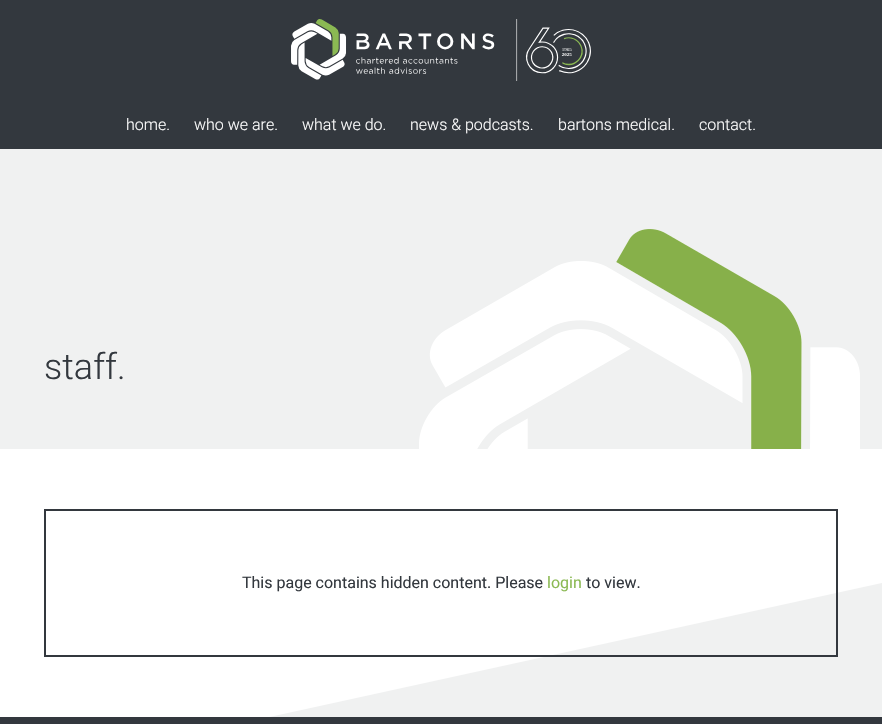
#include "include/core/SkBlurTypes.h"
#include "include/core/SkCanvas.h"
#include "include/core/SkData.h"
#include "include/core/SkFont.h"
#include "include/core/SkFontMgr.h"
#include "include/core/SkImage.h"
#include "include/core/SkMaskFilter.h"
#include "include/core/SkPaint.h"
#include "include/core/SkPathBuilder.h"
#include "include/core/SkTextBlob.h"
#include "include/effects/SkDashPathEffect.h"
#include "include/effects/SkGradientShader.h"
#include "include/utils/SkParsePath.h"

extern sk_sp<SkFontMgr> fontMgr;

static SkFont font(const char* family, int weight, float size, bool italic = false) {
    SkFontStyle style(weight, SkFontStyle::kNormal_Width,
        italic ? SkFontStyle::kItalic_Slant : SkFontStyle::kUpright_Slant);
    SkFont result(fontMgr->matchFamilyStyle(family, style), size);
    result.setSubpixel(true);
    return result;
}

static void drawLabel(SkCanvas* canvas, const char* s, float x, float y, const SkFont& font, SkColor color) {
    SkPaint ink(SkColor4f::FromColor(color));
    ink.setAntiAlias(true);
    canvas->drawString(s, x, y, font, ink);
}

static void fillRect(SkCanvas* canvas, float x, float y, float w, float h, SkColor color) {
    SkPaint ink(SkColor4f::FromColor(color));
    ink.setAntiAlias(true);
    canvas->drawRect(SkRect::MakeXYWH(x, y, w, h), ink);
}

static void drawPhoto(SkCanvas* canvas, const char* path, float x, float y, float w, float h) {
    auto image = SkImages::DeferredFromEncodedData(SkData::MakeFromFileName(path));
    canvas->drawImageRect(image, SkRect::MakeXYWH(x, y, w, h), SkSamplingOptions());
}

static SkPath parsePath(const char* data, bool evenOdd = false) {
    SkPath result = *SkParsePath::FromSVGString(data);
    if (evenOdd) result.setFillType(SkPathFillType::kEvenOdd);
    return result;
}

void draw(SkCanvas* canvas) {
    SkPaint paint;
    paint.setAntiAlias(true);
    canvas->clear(0xFFFFFFFF);
    fillRect(canvas, 0, 0, 882, 149, 0xFF33383E);
    drawPhoto(canvas, "assets/img1.png", 291, 19, 300, 62);
    SkFont font1 = font("Roboto", 300, 16);
    drawLabel(canvas, "home.", 126, 130, font1, 0xFFFFFFFF);
    drawLabel(canvas, "who we are.", 194, 130, font1, 0xFFFFFFFF);
    drawLabel(canvas, "what we do.", 302, 130, font1, 0xFFFFFFFF);
    drawLabel(canvas, "news & podcasts.", 410, 130, font1, 0xFFFFFFFF);
    drawLabel(canvas, "bartons medical.", 558, 130, font1, 0xFFFFFFFF);
    drawLabel(canvas, "contact.", 699, 130, font1, 0xFFFFFFFF);
    fillRect(canvas, 0, 149, 882, 300, 0xFFF0F1F1);
    drawPhoto(canvas, "assets/img2.png", 419, 229, 441, 220);
    SkFont font2 = font("Roboto", 300, 36);
    drawLabel(canvas, "staff.", 44, 379, font2, 0xFF33383E);
    paint.setColor(0xFFF0F1F1);
    canvas->drawPath(parsePath("M0 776L882 583V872H0Z"), paint);
    paint.setStroke(true);
    paint.setStrokeWidth(2);
    paint.setColor(0xFF33383E);
    canvas->drawRect(SkRect::MakeXYWH(45, 510, 792, 146), paint);
    SkFont font3 = font("Roboto", 400, 16);
    drawLabel(canvas, "This page contains hidden content. Please", 242, 588, font3, 0xFF33383E);
    drawLabel(canvas, "login", 547, 588, font3, 0xFF8BB953);
    drawLabel(canvas, "to view.", 586, 588, font3, 0xFF33383E);
    fillRect(canvas, 0, 717, 882, 7, 0xFF33383E);
}
